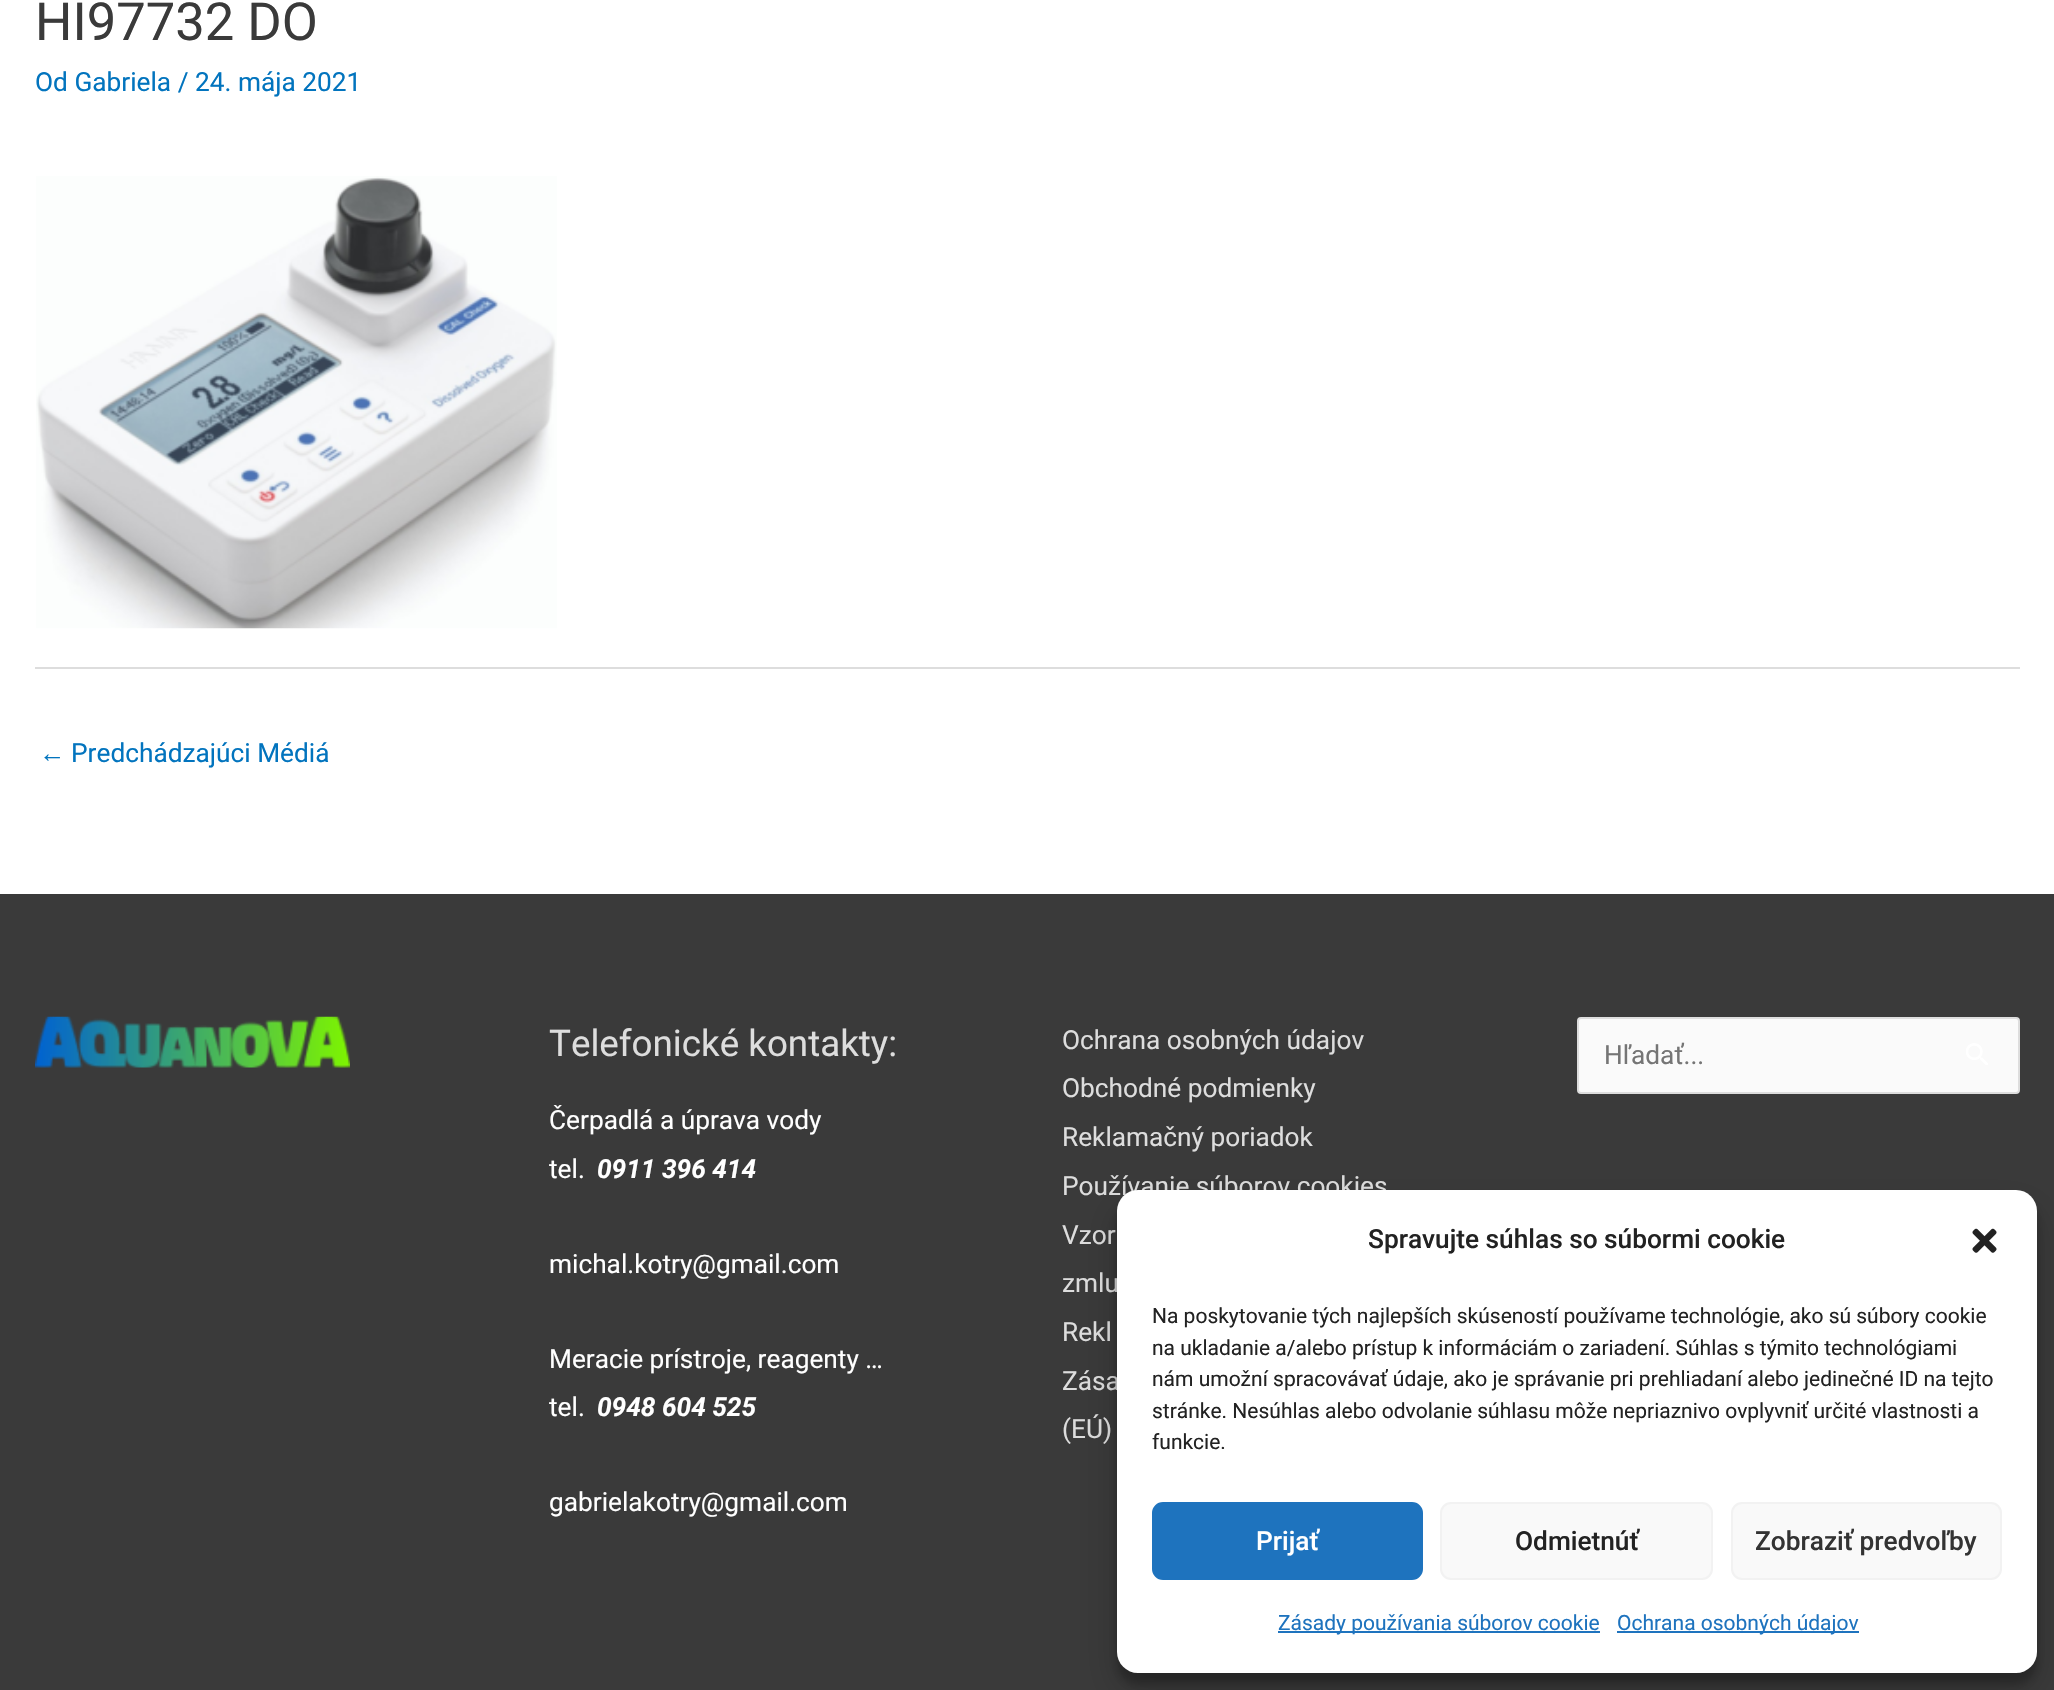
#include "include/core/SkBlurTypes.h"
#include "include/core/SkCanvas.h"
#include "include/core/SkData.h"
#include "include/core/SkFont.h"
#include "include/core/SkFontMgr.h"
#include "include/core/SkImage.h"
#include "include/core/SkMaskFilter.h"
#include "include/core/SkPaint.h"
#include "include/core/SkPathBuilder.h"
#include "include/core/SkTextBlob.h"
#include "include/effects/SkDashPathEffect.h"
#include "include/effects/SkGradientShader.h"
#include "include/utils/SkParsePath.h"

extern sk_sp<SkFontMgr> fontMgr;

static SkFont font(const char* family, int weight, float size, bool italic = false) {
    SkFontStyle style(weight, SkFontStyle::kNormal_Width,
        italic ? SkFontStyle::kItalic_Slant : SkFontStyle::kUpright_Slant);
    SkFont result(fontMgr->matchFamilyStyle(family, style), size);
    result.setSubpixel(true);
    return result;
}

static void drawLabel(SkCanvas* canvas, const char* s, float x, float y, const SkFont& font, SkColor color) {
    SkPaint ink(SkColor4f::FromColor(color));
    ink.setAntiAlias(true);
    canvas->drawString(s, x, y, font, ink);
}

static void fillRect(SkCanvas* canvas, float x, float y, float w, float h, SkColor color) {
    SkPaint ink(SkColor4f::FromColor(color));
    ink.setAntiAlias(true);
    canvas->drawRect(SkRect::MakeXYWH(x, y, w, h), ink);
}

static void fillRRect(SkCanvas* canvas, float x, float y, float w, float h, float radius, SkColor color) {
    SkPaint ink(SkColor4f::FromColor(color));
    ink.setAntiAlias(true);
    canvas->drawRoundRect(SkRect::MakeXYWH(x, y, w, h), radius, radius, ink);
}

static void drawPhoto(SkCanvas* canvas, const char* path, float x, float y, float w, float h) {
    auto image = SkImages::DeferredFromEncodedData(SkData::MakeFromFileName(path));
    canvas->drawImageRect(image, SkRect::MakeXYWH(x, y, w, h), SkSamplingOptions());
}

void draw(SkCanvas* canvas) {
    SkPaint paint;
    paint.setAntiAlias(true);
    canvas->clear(0xFFFFFFFF);
    SkFont font1 = font("Roboto", 400, 52.5f);
    drawLabel(canvas, "HI97732 DO", 35, 40, font1, 0xFF3A3A3A);
    SkFont font2 = font("Roboto", 400, 26.25f);
    drawLabel(canvas, "Od Gabriela / 24. mája 2021", 35, 91, font2, 0xFF0274BE);
    drawPhoto(canvas, "assets/img1.png", 36, 176, 521, 453);
    fillRect(canvas, 35, 667, 1985, 2, 0xFFDDDDDD);
    SkFont font3 = font("Liberation Sans", 400, 26.25f);
    drawLabel(canvas, "←", 39, 762, font3, 0xFF0274BE);
    drawLabel(canvas, "Predchádzajúci Médiá", 71, 762, font2, 0xFF0274BE);
    fillRect(canvas, 0, 894, 2054, 796, 0xFF3A3A3A);
    drawPhoto(canvas, "assets/img2.png", 35, 1016, 315, 52);
    SkFont font4 = font("Roboto", 400, 36.75f);
    drawLabel(canvas, "Telefonické kontakty:", 549, 1056, font4, 0xFFDDDDDD);
    drawLabel(canvas, "Čerpadlá a úprava vody", 549, 1129, font2, 0xFFFFFFFF);
    drawLabel(canvas, "tel.", 549, 1178, font2, 0xFFFFFFFF);
    SkFont font5 = font("Roboto", 700, 26.25f, true);
    drawLabel(canvas, "0911 396 414", 597, 1178, font5, 0xFFFFFFFF);
    drawLabel(canvas, "michal.kotry@gmail.com", 549, 1273, font2, 0xFFFFFFFF);
    drawLabel(canvas, "Meracie prístroje, reagenty …", 549, 1368, font2, 0xFFFFFFFF);
    drawLabel(canvas, "tel.", 549, 1416, font2, 0xFFFFFFFF);
    drawLabel(canvas, "0948 604 525", 597, 1416, font5, 0xFFFFFFFF);
    drawLabel(canvas, "gabrielakotry@gmail.com", 549, 1511, font2, 0xFFFFFFFF);
    drawLabel(canvas, "Ochrana osobných údajov", 1062, 1049, font2, 0xFFDDDDDD);
    drawLabel(canvas, "Obchodné podmienky", 1062, 1097, font2, 0xFFDDDDDD);
    drawLabel(canvas, "Reklamačný poriadok", 1062, 1146, font2, 0xFFDDDDDD);
    drawLabel(canvas, "Používanie súborov cookies", 1062, 1195, font2, 0xFFDDDDDD);
    drawLabel(canvas, "Vzor", 1062, 1244, font2, 0xFFDDDDDD);
    drawLabel(canvas, "zmlu", 1062, 1292, font2, 0xFFDDDDDD);
    drawLabel(canvas, "Rekl", 1062, 1341, font2, 0xFFDDDDDD);
    drawLabel(canvas, "Zása", 1062, 1390, font2, 0xFFDDDDDD);
    drawLabel(canvas, "(EÚ)", 1062, 1438, font2, 0xFFDDDDDD);
    paint.setColor(0xFFFAFAFA);
    canvas->drawRoundRect(SkRect::MakeXYWH(1578, 1018, 441, 75), 3, 3, paint);
    paint.setStroke(true);
    paint.setStrokeWidth(2);
    paint.setColor(0xFFDDDDDD);
    canvas->drawRoundRect(SkRect::MakeXYWH(1578, 1018, 441, 75), 3, 3, paint);
    drawLabel(canvas, "Hľadať...", 1604, 1064, font2, 0xFF757575);
    drawPhoto(canvas, "assets/img3.png", 1966, 1043, 22, 22);
    paint.setStroke(false);
    paint.setColor(0x3B000000);
    paint.setMaskFilter(SkMaskFilter::MakeBlur(kNormal_SkBlurStyle, 5));
    canvas->drawRoundRect(SkRect::MakeXYWH(1117, 1201, 920, 483), 21, 21, paint);
    paint.setMaskFilter(nullptr);
    paint.setColor(0x30000000);
    paint.setMaskFilter(SkMaskFilter::MakeBlur(kNormal_SkBlurStyle, 17.5f));
    canvas->drawRoundRect(SkRect::MakeXYWH(1117, 1208, 920, 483), 21, 21, paint);
    paint.setMaskFilter(nullptr);
    fillRRect(canvas, 1117, 1190, 920, 483, 21, 0xFFFFFFFF);
    SkFont font6 = font("Roboto", 500, 26.25f);
    drawLabel(canvas, "Spravujte súhlas so súbormi cookie", 1368, 1248, font6, 0xFF222222);
    drawPhoto(canvas, "assets/img4.png", 1972, 1228, 25, 25);
    SkFont font7 = font("Roboto", 400, 21);
    drawLabel(canvas, "Na poskytovanie tých najlepších skúseností používame technológie, ako sú súbory cookie", 1152, 1323, font7, 0xFF222222);
    drawLabel(canvas, "na ukladanie a/alebo prístup k informáciám o zariadení. Súhlas s týmito technológiami", 1152, 1355, font7, 0xFF222222);
    drawLabel(canvas, "nám umožní spracovávať údaje, ako je správanie pri prehliadaní alebo jedinečné ID na tejto", 1152, 1386, font7, 0xFF222222);
    drawLabel(canvas, "stránke. Nesúhlas alebo odvolanie súhlasu môže nepriaznivo ovplyvniť určité vlastnosti a", 1152, 1418, font7, 0xFF222222);
    drawLabel(canvas, "funkcie.", 1152, 1449, font7, 0xFF222222);
    paint.setColor(0xFF1E73BE);
    canvas->drawRoundRect(SkRect::MakeXYWH(1153, 1503, 269, 76), 10, 10, paint);
    paint.setStroke(true);
    canvas->drawRoundRect(SkRect::MakeXYWH(1153, 1503, 269, 76), 10, 10, paint);
    drawLabel(canvas, "Prijať", 1256, 1550, font6, 0xFFFFFFFF);
    paint.setStroke(false);
    paint.setColor(0xFFF9F9F9);
    canvas->drawRoundRect(SkRect::MakeXYWH(1441, 1503, 271, 76), 10, 10, paint);
    paint.setStroke(true);
    paint.setColor(0xFFF2F2F2);
    canvas->drawRoundRect(SkRect::MakeXYWH(1441, 1503, 271, 76), 10, 10, paint);
    drawLabel(canvas, "Odmietnúť", 1515, 1550, font6, 0xFF222222);
    paint.setStroke(false);
    paint.setColor(0xFFF9F9F9);
    canvas->drawRoundRect(SkRect::MakeXYWH(1732, 1503, 269, 76), 10, 10, paint);
    paint.setStroke(true);
    paint.setColor(0xFFF2F2F2);
    canvas->drawRoundRect(SkRect::MakeXYWH(1732, 1503, 269, 76), 10, 10, paint);
    drawLabel(canvas, "Zobraziť predvoľby", 1755, 1550, font6, 0xFF333333);
    fillRect(canvas, 1278, 1631, 322, 2, 0xFF1E73BE);
    drawLabel(canvas, "Zásady používania súborov cookie", 1278, 1630, font7, 0xFF1E73BE);
    fillRect(canvas, 1617, 1631, 242, 2, 0xFF1E73BE);
    drawLabel(canvas, "Ochrana osobných údajov", 1617, 1630, font7, 0xFF1E73BE);
}
